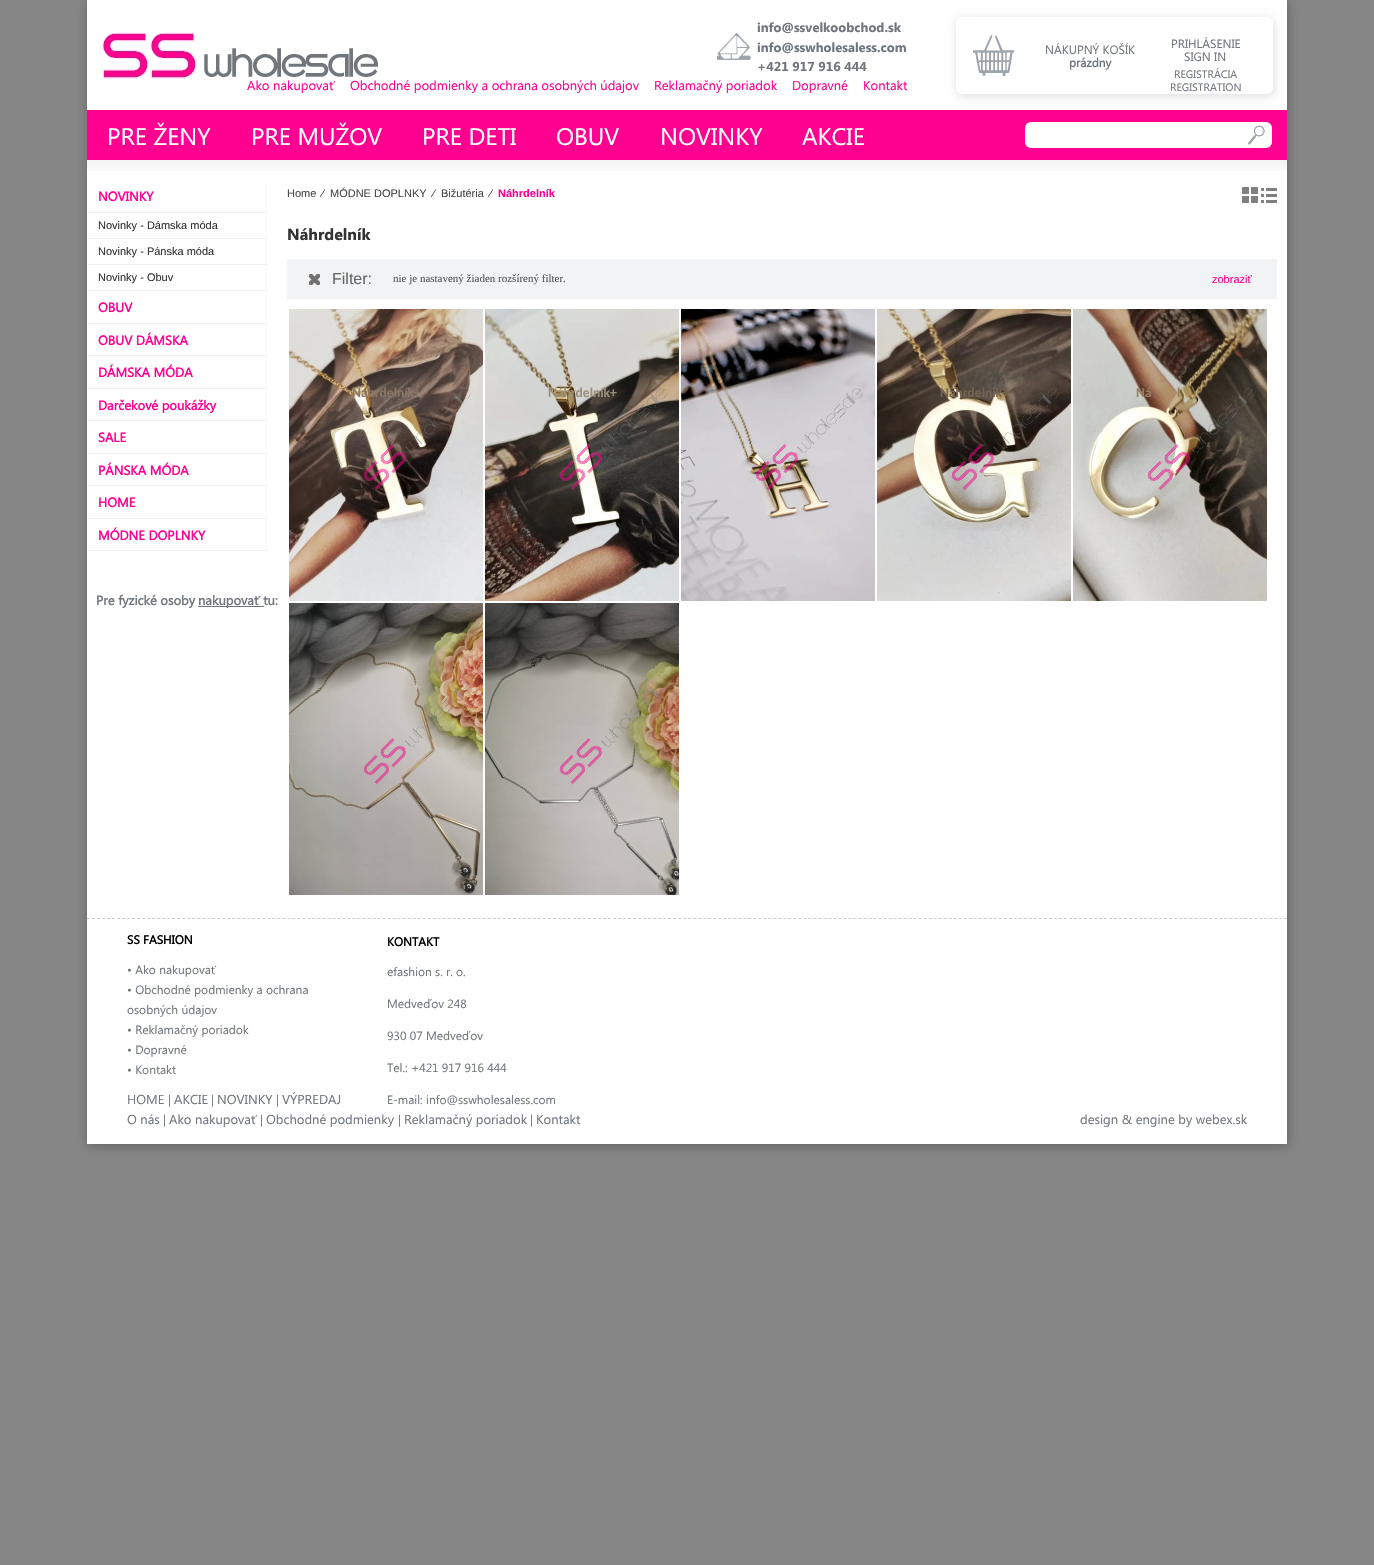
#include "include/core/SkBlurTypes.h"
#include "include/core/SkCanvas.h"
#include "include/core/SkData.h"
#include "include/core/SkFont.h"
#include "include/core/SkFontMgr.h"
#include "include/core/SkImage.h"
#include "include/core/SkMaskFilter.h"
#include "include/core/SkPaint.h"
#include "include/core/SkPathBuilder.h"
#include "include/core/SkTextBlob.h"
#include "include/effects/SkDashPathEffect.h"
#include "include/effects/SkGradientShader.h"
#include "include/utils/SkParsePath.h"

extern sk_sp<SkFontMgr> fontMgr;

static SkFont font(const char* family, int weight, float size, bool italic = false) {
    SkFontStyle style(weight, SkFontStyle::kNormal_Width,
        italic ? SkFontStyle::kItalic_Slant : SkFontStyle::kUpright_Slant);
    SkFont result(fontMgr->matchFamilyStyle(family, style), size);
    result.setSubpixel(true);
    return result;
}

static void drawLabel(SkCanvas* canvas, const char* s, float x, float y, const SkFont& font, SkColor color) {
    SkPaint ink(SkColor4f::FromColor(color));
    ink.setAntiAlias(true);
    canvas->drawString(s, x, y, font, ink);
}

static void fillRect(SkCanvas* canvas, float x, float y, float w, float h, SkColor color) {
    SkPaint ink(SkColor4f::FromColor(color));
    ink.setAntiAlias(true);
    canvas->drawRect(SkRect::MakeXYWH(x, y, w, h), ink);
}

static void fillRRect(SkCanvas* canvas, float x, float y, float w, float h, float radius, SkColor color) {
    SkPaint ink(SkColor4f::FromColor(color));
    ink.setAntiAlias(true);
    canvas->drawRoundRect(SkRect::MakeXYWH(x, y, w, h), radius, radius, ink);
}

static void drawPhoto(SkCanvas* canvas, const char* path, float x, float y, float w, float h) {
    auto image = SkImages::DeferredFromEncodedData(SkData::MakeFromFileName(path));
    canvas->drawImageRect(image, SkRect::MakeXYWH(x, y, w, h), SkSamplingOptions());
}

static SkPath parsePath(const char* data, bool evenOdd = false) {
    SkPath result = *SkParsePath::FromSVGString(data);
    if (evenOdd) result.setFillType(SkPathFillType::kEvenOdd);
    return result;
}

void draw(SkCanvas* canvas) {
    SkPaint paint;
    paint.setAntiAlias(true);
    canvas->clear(0xFF858585);
    paint.setColor(0xFF636363);
    paint.setMaskFilter(SkMaskFilter::MakeBlur(kNormal_SkBlurStyle, 5));
    canvas->drawRect(SkRect::MakeXYWH(88, 2, 1200, 1144), paint);
    paint.setMaskFilter(nullptr);
    fillRect(canvas, 87, 0, 1200, 1144, 0xFFFFFFFF);
    drawPhoto(canvas, "assets/img1.png", 102, 32, 276, 47);
    drawPhoto(canvas, "assets/img2.png", 717, 33, 34, 27);
    SkFont font1 = font("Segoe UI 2", 700, 13);
    drawLabel(canvas, "info@ssvelkoobchod.sk", 757, 32, font1, 0xFF71767C);
    drawLabel(canvas, "info@sswholesaless.com", 757, 52, font1, 0xFF71767C);
    drawLabel(canvas, "+421 917 916 444", 757, 71, font1, 0xFF71767C);
    paint.setColor(0xFFDEDDDD);
    paint.setMaskFilter(SkMaskFilter::MakeBlur(kNormal_SkBlurStyle, 5));
    canvas->drawRoundRect(SkRect::MakeXYWH(957, 19, 317, 77), 6, 6, paint);
    paint.setMaskFilter(nullptr);
    fillRRect(canvas, 956, 17, 317, 77, 6, 0xFFFFFFFF);
    drawPhoto(canvas, "assets/img3.png", 973, 35, 42, 41);
    SkFont font2 = font("Segoe UI", 400, 12);
    drawLabel(canvas, "NÁKUPNÝ KOŠÍK", 1045, 54, font2, 0xFF71767C);
    SkFont font3 = font("Segoe UI", 700, 12);
    drawLabel(canvas, "prázdny", 1069, 67, font3, 0xFF71767C);
    drawLabel(canvas, "PRIHLÁSENIE", 1171, 48, font2, 0xFF71767C);
    drawLabel(canvas, "SIGN IN", 1184, 61, font2, 0xFF71767C);
    SkFont font4 = font("Segoe UI", 400, 10.75f);
    drawLabel(canvas, "REGISTRÁCIA", 1174, 78, font4, 0xFF71767C);
    drawLabel(canvas, "REGISTRATION", 1170, 91, font4, 0xFF71767C);
    SkFont font5 = font("Segoe UI", 400, 13);
    drawLabel(canvas, "Ako nakupovať", 247, 90, font5, 0xFFFF0090);
    drawLabel(canvas, "Obchodné podmienky a ochrana osobných údajov", 350, 90, font5, 0xFFFF0090);
    drawLabel(canvas, "Reklamačný poriadok", 654, 90, font5, 0xFFFF0090);
    drawLabel(canvas, "Dopravné", 792, 90, font5, 0xFFFF0090);
    drawLabel(canvas, "Kontakt", 863, 90, font5, 0xFFFF0090);
    fillRect(canvas, 87, 110, 1200, 50, 0xFFFF0090);
    SkFont font6 = font("Segoe UI", 400, 24);
    drawLabel(canvas, "PRE ŽENY", 107, 145, font6, 0xFFFFFFFF);
    drawLabel(canvas, "PRE MUŽOV", 251, 145, font6, 0xFFFFFFFF);
    drawLabel(canvas, "PRE DETI", 422, 145, font6, 0xFFFFFFFF);
    drawLabel(canvas, "OBUV", 556, 145, font6, 0xFFFFFFFF);
    drawLabel(canvas, "NOVINKY", 660, 145, font6, 0xFFFFFFFF);
    drawLabel(canvas, "AKCIE", 802, 145, font6, 0xFFFFFFFF);
    drawPhoto(canvas, "assets/img4.png", 1025, 122, 221, 26);
    drawPhoto(canvas, "assets/img5.png", 1246, 122, 26, 26);
    drawPhoto(canvas, "assets/img6.png", 87, 160, 1200, 11);
    fillRect(canvas, 266, 180, 1, 371, 0xFFF8F8F8);
    fillRect(canvas, 88, 212, 178, 1, 0xFFF0F0F0);
    SkFont font7 = font("Segoe UI", 700, 13);
    drawLabel(canvas, "NOVINKY", 98, 201, font7, 0xFFFF0090);
    fillRect(canvas, 88, 238, 178, 1, 0xFFF0F0F0);
    SkFont font8 = font("Liberation Sans", 400, 11);
    drawLabel(canvas, "Novinky - Dámska móda", 98, 229, font8, 0xFF333333);
    fillRect(canvas, 88, 264, 178, 1, 0xFFF0F0F0);
    drawLabel(canvas, "Novinky - Pánska móda", 98, 255, font8, 0xFF333333);
    fillRect(canvas, 88, 290, 178, 1, 0xFFF0F0F0);
    drawLabel(canvas, "Novinky - Obuv", 98, 281, font8, 0xFF333333);
    fillRect(canvas, 88, 323, 178, 1, 0xFFF0F0F0);
    drawLabel(canvas, "OBUV", 98, 312, font7, 0xFFFF0090);
    fillRect(canvas, 88, 355, 178, 1, 0xFFF0F0F0);
    drawLabel(canvas, "OBUV DÁMSKA", 98, 345, font7, 0xFFFF0090);
    fillRect(canvas, 88, 388, 178, 1, 0xFFF0F0F0);
    drawLabel(canvas, "DÁMSKA MÓDA", 98, 377, font7, 0xFFFF0090);
    fillRect(canvas, 88, 420, 178, 1, 0xFFF0F0F0);
    drawLabel(canvas, "Darčekové poukážky", 98, 410, font7, 0xFFFF0090);
    fillRect(canvas, 88, 453, 178, 1, 0xFFF0F0F0);
    drawLabel(canvas, "SALE", 98, 442, font7, 0xFFFF0090);
    fillRect(canvas, 88, 485, 178, 1, 0xFFF0F0F0);
    drawLabel(canvas, "PÁNSKA MÓDA", 98, 475, font7, 0xFFFF0090);
    fillRect(canvas, 88, 518, 178, 1, 0xFFF0F0F0);
    drawLabel(canvas, "HOME", 98, 507, font7, 0xFFFF0090);
    fillRect(canvas, 88, 550, 178, 1, 0xFFF0F0F0);
    drawLabel(canvas, "MÓDNE DOPLNKY", 98, 540, font7, 0xFFFF0090);
    drawLabel(canvas, "Pre fyzické osoby", 96, 605, font7, 0xFF71767C);
    fillRect(canvas, 198, 606, 66, 1, 0xFF71767C);
    drawLabel(canvas, "nakupovať tu:", 198, 605, font7, 0xFF71767C);
    drawLabel(canvas, "Home", 287, 197, font8, 0xFF464646);
    drawLabel(canvas, "⁄", 322, 197, font8, 0xFF464646);
    drawLabel(canvas, "MÓDNE DOPLNKY", 330, 197, font8, 0xFF464646);
    drawLabel(canvas, "⁄", 433, 197, font8, 0xFF464646);
    drawLabel(canvas, "Bižutéria", 441, 197, font8, 0xFF464646);
    drawLabel(canvas, "⁄", 490, 197, font8, 0xFF464646);
    SkFont font9 = font("Liberation Sans", 700, 11);
    drawLabel(canvas, "Náhrdelník", 498, 197, font9, 0xFFFF0090);
    drawPhoto(canvas, "assets/img7.png", 1242, 187, 16, 16);
    drawPhoto(canvas, "assets/img8.png", 1261, 188, 16, 15);
    SkFont font10 = font("Segoe UI 2", 700, 16);
    drawLabel(canvas, "Náhrdelník", 287, 240, font10, 0xFF333333);
    fillRect(canvas, 287, 259, 990, 40, 0xFFF2F3F4);
    drawPhoto(canvas, "assets/img9.png", 307, 272, 13, 13);
    SkFont font11 = font("Liberation Sans", 400, 16);
    drawLabel(canvas, "Filter:", 332, 284, font11, 0xFF666666);
    SkFont font12 = font("Liberation Serif", 400, 11);
    drawLabel(canvas, "nie je nastavený žiaden rozšírený filter.", 393, 282, font12, 0xFF555555);
    drawLabel(canvas, "zobraziť", 1212, 283, font8, 0xFFFF0090);
    drawPhoto(canvas, "assets/img10.png", 289, 309, 194, 292);
    SkFont font13 = font("Carlito", 700, 13.5f);
    drawLabel(canvas, "Náhrdelník+", 352, 397, font13, 0xFF897664);
    drawPhoto(canvas, "assets/img11.png", 485, 309, 194, 292);
    drawLabel(canvas, "Náhrdelník+", 548, 397, font13, 0xFF9B907C);
    drawPhoto(canvas, "assets/img12.png", 681, 309, 194, 292);
    drawPhoto(canvas, "assets/img13.png", 877, 309, 194, 292);
    drawLabel(canvas, "Náhrdelník+", 940, 397, font13, 0xFF736451);
    drawPhoto(canvas, "assets/img14.png", 1073, 309, 194, 292);
    drawLabel(canvas, "Ná", 1136, 397, font13, 0xFF997E60);
    drawLabel(canvas, "l", 1177, 397, font13, 0xFF997E60);
    drawPhoto(canvas, "assets/img15.png", 289, 603, 194, 292);
    drawLabel(canvas, "+", 413, 691, font13, 0xFFC6C0BB);
    drawPhoto(canvas, "assets/img16.png", 485, 603, 194, 292);
    paint.setStroke(true);
    paint.setStrokeWidth(1);
    paint.setColor(0xFFCDCDCD);
    paint.setPathEffect(SkDashPathEffect::Make({{3, 2.01f}}, 0));
    canvas->drawPath(parsePath("M87 918.5H1287"), paint);
    paint.setPathEffect(nullptr);
    drawLabel(canvas, "SS FASHION", 127, 944, font3, 0xFF000000);
    drawLabel(canvas, "• Ako nakupovať", 127, 974, font2, 0xFF71767C);
    drawLabel(canvas, "• Obchodné podmienky a ochrana", 127, 994, font2, 0xFF71767C);
    drawLabel(canvas, "osobných údajov", 127, 1014, font2, 0xFF71767C);
    drawLabel(canvas, "• Reklamačný poriadok", 127, 1034, font2, 0xFF71767C);
    drawLabel(canvas, "• Dopravné", 127, 1054, font2, 0xFF71767C);
    drawLabel(canvas, "• Kontakt", 127, 1074, font2, 0xFF71767C);
    drawLabel(canvas, "KONTAKT", 387, 946, font3, 0xFF000000);
    drawLabel(canvas, "efashion s. r. o.", 387, 976, font2, 0xFF71767C);
    drawLabel(canvas, "Medveďov 248", 387, 1008, font2, 0xFF71767C);
    drawLabel(canvas, "930 07 Medveďov", 387, 1040, font2, 0xFF71767C);
    drawLabel(canvas, "Tel.: +421 917 916 444", 387, 1072, font2, 0xFF71767C);
    drawLabel(canvas, "E-mail: info@sswholesaless.com", 387, 1104, font2, 0xFF71767C);
    drawLabel(canvas, "HOME", 127, 1104, font5, 0xFF71767C);
    drawLabel(canvas, "|", 168, 1104, font2, 0xFF71767C);
    drawLabel(canvas, "AKCIE", 174, 1104, font5, 0xFF71767C);
    drawLabel(canvas, "|", 211, 1104, font2, 0xFF71767C);
    drawLabel(canvas, "NOVINKY", 217, 1104, font5, 0xFF71767C);
    drawLabel(canvas, "|", 276, 1104, font2, 0xFF71767C);
    drawLabel(canvas, "VÝPREDAJ", 282, 1104, font5, 0xFF71767C);
    drawLabel(canvas, "O nás", 127, 1124, font5, 0xFF71767C);
    drawLabel(canvas, "|", 163, 1124, font2, 0xFF71767C);
    drawLabel(canvas, "Ako nakupovať", 169, 1124, font5, 0xFF71767C);
    drawLabel(canvas, "|", 260, 1124, font2, 0xFF71767C);
    drawLabel(canvas, "Obchodné podmienky", 266, 1124, font5, 0xFF71767C);
    drawLabel(canvas, "|", 398, 1124, font2, 0xFF71767C);
    drawLabel(canvas, "Reklamačný poriadok", 404, 1124, font5, 0xFF71767C);
    drawLabel(canvas, "|", 530, 1124, font2, 0xFF71767C);
    drawLabel(canvas, "Kontakt", 536, 1124, font5, 0xFF71767C);
    drawLabel(canvas, "design & engine by webex.sk", 1080, 1124, font5, 0xFF71767C);
}
